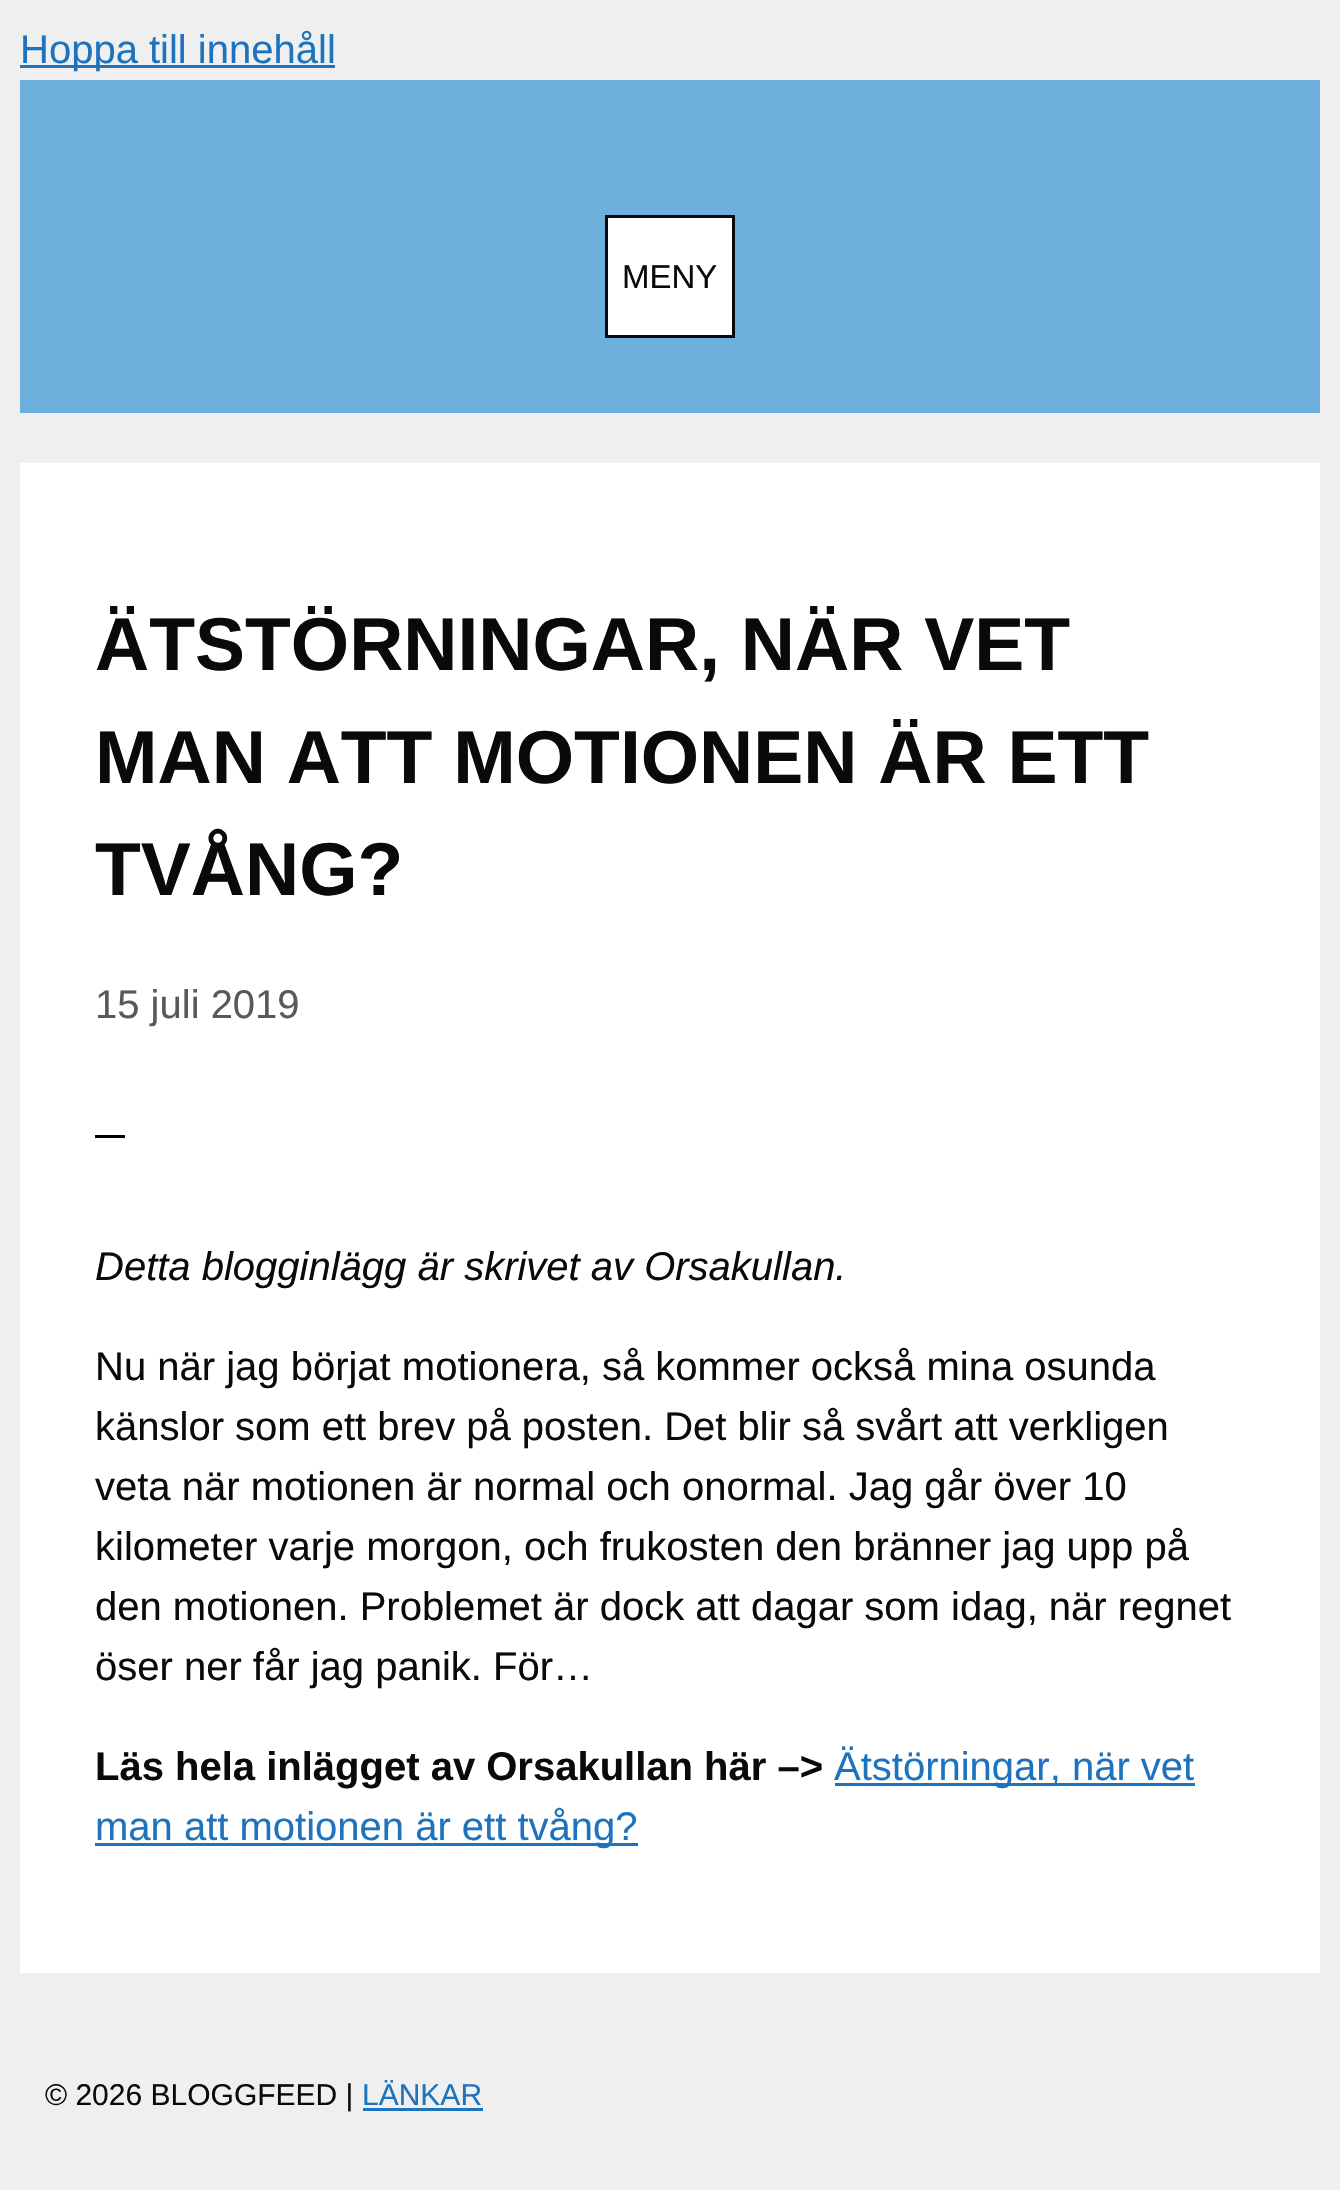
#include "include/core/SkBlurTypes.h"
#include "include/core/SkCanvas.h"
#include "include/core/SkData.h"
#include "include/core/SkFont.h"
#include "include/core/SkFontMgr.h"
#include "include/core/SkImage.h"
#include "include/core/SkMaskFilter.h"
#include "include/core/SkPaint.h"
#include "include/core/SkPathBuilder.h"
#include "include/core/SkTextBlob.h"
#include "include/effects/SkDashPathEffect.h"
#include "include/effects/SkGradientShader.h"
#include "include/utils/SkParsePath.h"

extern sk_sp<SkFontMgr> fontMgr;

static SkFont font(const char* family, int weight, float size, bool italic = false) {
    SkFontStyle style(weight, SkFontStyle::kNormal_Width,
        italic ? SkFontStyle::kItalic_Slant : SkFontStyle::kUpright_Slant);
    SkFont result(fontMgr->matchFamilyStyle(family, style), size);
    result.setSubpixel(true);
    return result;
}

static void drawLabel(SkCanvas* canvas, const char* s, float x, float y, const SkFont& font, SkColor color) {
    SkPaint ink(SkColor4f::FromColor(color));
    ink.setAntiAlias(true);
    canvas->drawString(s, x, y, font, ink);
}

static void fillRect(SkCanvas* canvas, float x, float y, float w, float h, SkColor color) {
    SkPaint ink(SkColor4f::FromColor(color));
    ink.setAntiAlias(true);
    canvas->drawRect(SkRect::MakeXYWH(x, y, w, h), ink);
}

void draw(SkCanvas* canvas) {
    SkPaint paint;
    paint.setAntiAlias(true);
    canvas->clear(0xFFEFEFEF);
    fillRect(canvas, 20, 65, 315, 3, 0xFF1E73BE);
    SkFont font1 = font("Arimo", 400, 40);
    drawLabel(canvas, "Hoppa till innehåll", 20, 63, font1, 0xFF1E73BE);
    fillRect(canvas, 20, 80, 1300, 333, 0xFF6DAFDB);
    paint.setColor(0xFFFFFFFF);
    canvas->drawRect(SkRect::MakeXYWH(606.5f, 216.5f, 127, 120), paint);
    paint.setStroke(true);
    paint.setStrokeWidth(3);
    paint.setColor(0xFF0A0A0A);
    canvas->drawRect(SkRect::MakeXYWH(606.5f, 216.5f, 127, 120), paint);
    SkFont font2 = font("Arimo", 400, 33);
    drawLabel(canvas, "MENY", 622, 288, font2, 0xFF0A0A0A);
    fillRect(canvas, 20, 463, 1300, 1510, 0xFFFFFFFF);
    SkFont font3 = font("Arimo", 700, 75);
    drawLabel(canvas, "ÄTSTÖRNINGAR, NÄR VET", 95, 670, font3, 0xFF0A0A0A);
    drawLabel(canvas, "MAN ATT MOTIONEN ÄR ETT", 95, 783, font3, 0xFF0A0A0A);
    drawLabel(canvas, "TVÅNG?", 95, 895, font3, 0xFF0A0A0A);
    drawLabel(canvas, "15 juli 2019", 95, 1018, font1, 0xFF595959);
    fillRect(canvas, 95, 1135, 30, 3, 0xFF000000);
    SkFont font4 = font("Arimo", 400, 40, true);
    drawLabel(canvas, "Detta blogginlägg är skrivet av Orsakullan.", 95, 1280, font4, 0xFF0A0A0A);
    drawLabel(canvas, "Nu när jag börjat motionera, så kommer också mina osunda", 95, 1380, font1, 0xFF0A0A0A);
    drawLabel(canvas, "känslor som ett brev på posten. Det blir så svårt att verkligen", 95, 1440, font1, 0xFF0A0A0A);
    drawLabel(canvas, "veta när motionen är normal och onormal. Jag går över 10", 95, 1500, font1, 0xFF0A0A0A);
    drawLabel(canvas, "kilometer varje morgon, och frukosten den bränner jag upp på", 95, 1560, font1, 0xFF0A0A0A);
    drawLabel(canvas, "den motionen. Problemet är dock att dagar som idag, när regnet", 95, 1620, font1, 0xFF0A0A0A);
    drawLabel(canvas, "öser ner får jag panik. För…", 95, 1680, font1, 0xFF0A0A0A);
    SkFont font5 = font("Arimo", 700, 40);
    drawLabel(canvas, "Läs hela inlägget av Orsakullan här –>", 95, 1780, font5, 0xFF0A0A0A);
    fillRect(canvas, 835, 1783, 360, 3, 0xFF1E73BE);
    drawLabel(canvas, "Ätstörningar, när vet", 834, 1780, font1, 0xFF1E73BE);
    fillRect(canvas, 95, 1843, 543, 3, 0xFF1E73BE);
    drawLabel(canvas, "man att motionen är ett tvång?", 95, 1840, font1, 0xFF1E73BE);
    SkFont font6 = font("Arimo", 400, 30);
    drawLabel(canvas, "© 2026 BLOGGFEED |", 45, 2105, font6, 0xFF0A0A0A);
    drawLabel(canvas, "LÄNKAR", 362, 2105, font6, 0xFF1E73BE);
    fillRect(canvas, 363, 2108, 120, 3, 0xFF1E73BE);
}
